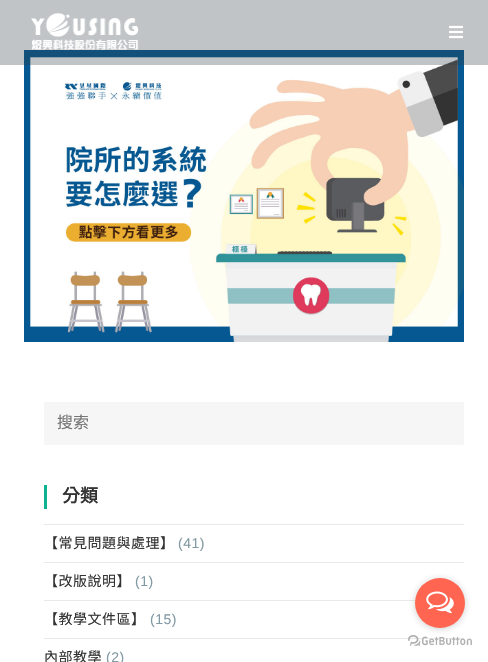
#include "include/core/SkBlurTypes.h"
#include "include/core/SkCanvas.h"
#include "include/core/SkData.h"
#include "include/core/SkFont.h"
#include "include/core/SkFontMgr.h"
#include "include/core/SkImage.h"
#include "include/core/SkMaskFilter.h"
#include "include/core/SkPaint.h"
#include "include/core/SkPathBuilder.h"
#include "include/core/SkTextBlob.h"
#include "include/effects/SkDashPathEffect.h"
#include "include/effects/SkGradientShader.h"
#include "include/utils/SkParsePath.h"

extern sk_sp<SkFontMgr> fontMgr;

static SkFont font(const char* family, int weight, float size, bool italic = false) {
    SkFontStyle style(weight, SkFontStyle::kNormal_Width,
        italic ? SkFontStyle::kItalic_Slant : SkFontStyle::kUpright_Slant);
    SkFont result(fontMgr->matchFamilyStyle(family, style), size);
    result.setSubpixel(true);
    return result;
}

static void drawLabel(SkCanvas* canvas, const char* s, float x, float y, const SkFont& font, SkColor color) {
    SkPaint ink(SkColor4f::FromColor(color));
    ink.setAntiAlias(true);
    canvas->drawString(s, x, y, font, ink);
}

static void drawTracked(SkCanvas* canvas, const char* s, float x, float y, const SkFont& font, const SkPaint& ink, float letter, float word) {
    std::vector<SkGlyphID> glyphs(font.countText(s, strlen(s), SkTextEncoding::kUTF8));
    std::vector<float> xs(glyphs.size());
    font.textToGlyphs(s, strlen(s), SkTextEncoding::kUTF8, glyphs);
    font.getXPos(glyphs, xs, x);
    float extra = 0;
    for (size_t i = 0; i < glyphs.size(); i++) {
        xs[i] += extra;
        extra += letter + word * (glyphs[i] == font.unicharToGlyph(' '));
    }
    canvas->drawTextBlob(SkTextBlob::MakeFromPosHGlyphs(glyphs, xs, y, font), 0, 0, ink);
}

static void fillRect(SkCanvas* canvas, float x, float y, float w, float h, SkColor color) {
    SkPaint ink(SkColor4f::FromColor(color));
    ink.setAntiAlias(true);
    canvas->drawRect(SkRect::MakeXYWH(x, y, w, h), ink);
}

static void fillRRect(SkCanvas* canvas, float x, float y, float w, float h, float radius, SkColor color) {
    SkPaint ink(SkColor4f::FromColor(color));
    ink.setAntiAlias(true);
    canvas->drawRoundRect(SkRect::MakeXYWH(x, y, w, h), radius, radius, ink);
}

static void drawPhoto(SkCanvas* canvas, const char* path, float x, float y, float w, float h) {
    auto image = SkImages::DeferredFromEncodedData(SkData::MakeFromFileName(path));
    canvas->drawImageRect(image, SkRect::MakeXYWH(x, y, w, h), SkSamplingOptions());
}

void draw(SkCanvas* canvas) {
    SkPaint paint;
    paint.setAntiAlias(true);
    canvas->clear(0xFFFFFFFF);
    drawPhoto(canvas, "assets/img3.png", 24, 50, 440, 292);
    fillRect(canvas, 0, 0, 488, 65, 0x4D2E3B42);
    drawPhoto(canvas, "assets/img1.png", 31, 13, 108, 37);
    drawPhoto(canvas, "assets/img2.png", 449, 25, 14, 14);
    fillRRect(canvas, 44, 402, 420, 43, 1, 0xFFF6F6F6);
    SkFont font1 = font("Noto Sans CJK TC", 400, 16);
    drawLabel(canvas, "搜索", 57, 428, font1, 0xFF757575);
    fillRect(canvas, 44, 485, 3, 24, 0xFF0EB290);
    SkFont font2 = font("Noto Sans CJK TC", 700, 18);
    drawLabel(canvas, "分類", 62, 502, font2, 0xFF333333);
    fillRect(canvas, 44, 524, 420, 1, 0xFFE9E9E9);
    fillRect(canvas, 44, 562, 420, 1, 0xFFE9E9E9);
    SkFont font3 = font("Noto Sans CJK TC", 400, 14);
    paint.setColor(0xFF333333);
    drawTracked(canvas, "【常見問題與處理】", 44, 548, font3, paint, 0.5f, 0);
    SkFont font4 = font("Liberation Sans", 400, 14);
    paint.setColor(0xFF829AA3);
    drawTracked(canvas, "(41)", 178, 548, font4, paint, 0.5f, 0);
    fillRect(canvas, 44, 600, 372, 1, 0xFFE9E9E9);
    paint.setColor(0xFF333333);
    drawTracked(canvas, "【改版說明】", 44, 586, font3, paint, 0.5f, 0);
    paint.setColor(0xFF829AA3);
    drawTracked(canvas, "(1)", 135, 586, font4, paint, 0.5f, 0);
    fillRect(canvas, 44, 638, 420, 1, 0xFFE9E9E9);
    paint.setColor(0xFF333333);
    drawTracked(canvas, "【教學文件區】", 44, 624, font3, paint, 0.5f, 0);
    paint.setColor(0xFF829AA3);
    drawTracked(canvas, "(15)", 150, 624, font4, paint, 0.5f, 0);
    paint.setColor(0xFF333333);
    drawTracked(canvas, "內部教學", 44, 662, font3, paint, 0.5f, 0);
    paint.setColor(0xFF829AA3);
    drawTracked(canvas, "(2)", 106, 662, font4, paint, 0.5f, 0);
    drawPhoto(canvas, "assets/img5.png", 408, 635, 64, 11);
    paint.setColor(0x66888888);
    paint.setMaskFilter(SkMaskFilter::MakeBlur(kNormal_SkBlurStyle, 3.5f));
    canvas->drawRoundRect(SkRect::MakeXYWH(415, 579, 50, 50), 25, 25, paint);
    paint.setMaskFilter(nullptr);
    paint.setColor(0xFFFF6550);
    canvas->drawCircle(440, 603, 25, paint);
    drawPhoto(canvas, "assets/img4.png", 426, 591, 28, 23);
}
